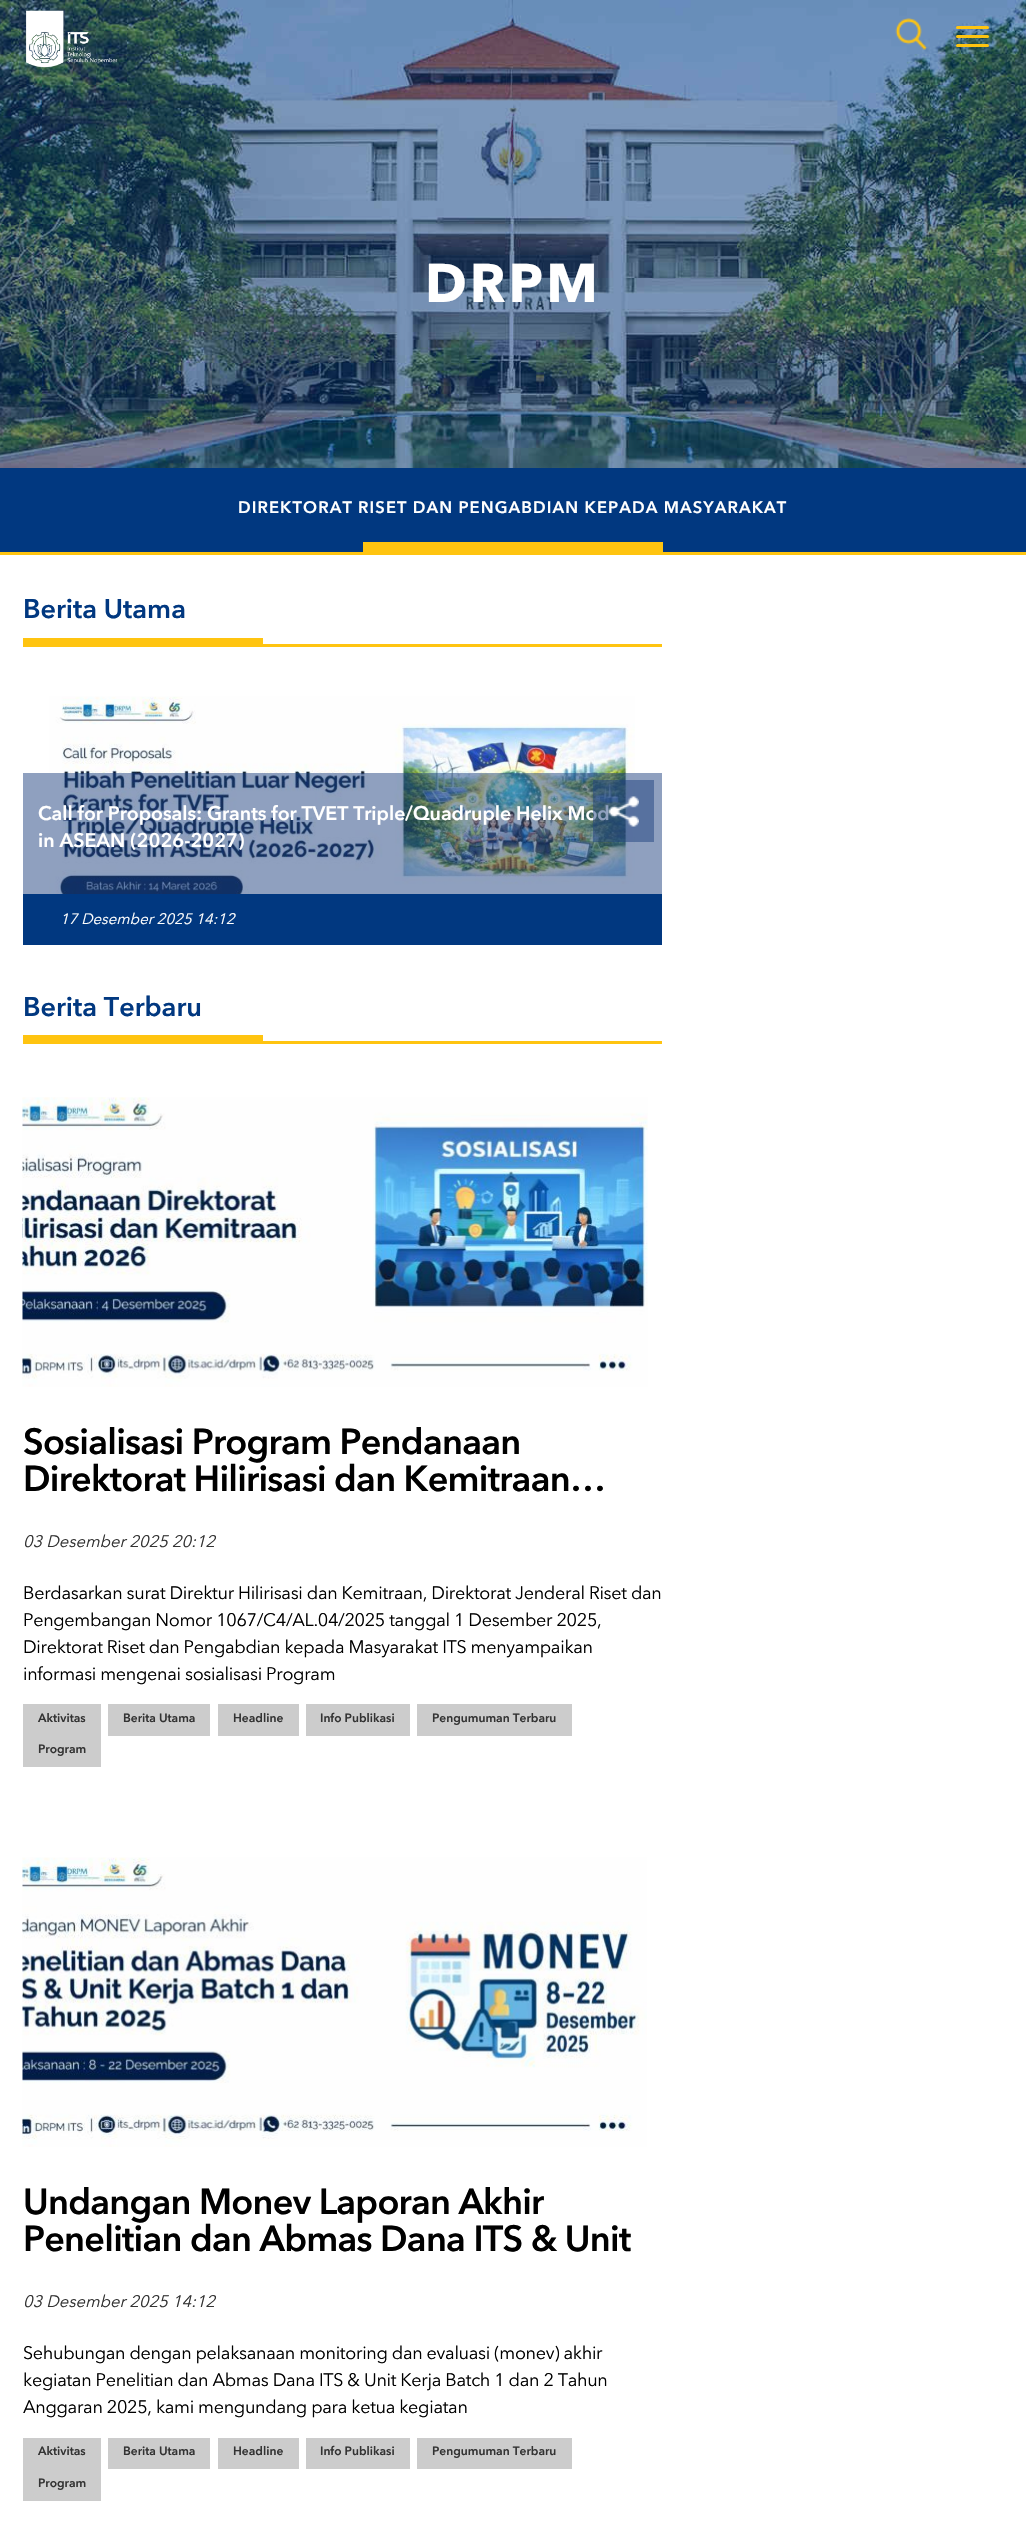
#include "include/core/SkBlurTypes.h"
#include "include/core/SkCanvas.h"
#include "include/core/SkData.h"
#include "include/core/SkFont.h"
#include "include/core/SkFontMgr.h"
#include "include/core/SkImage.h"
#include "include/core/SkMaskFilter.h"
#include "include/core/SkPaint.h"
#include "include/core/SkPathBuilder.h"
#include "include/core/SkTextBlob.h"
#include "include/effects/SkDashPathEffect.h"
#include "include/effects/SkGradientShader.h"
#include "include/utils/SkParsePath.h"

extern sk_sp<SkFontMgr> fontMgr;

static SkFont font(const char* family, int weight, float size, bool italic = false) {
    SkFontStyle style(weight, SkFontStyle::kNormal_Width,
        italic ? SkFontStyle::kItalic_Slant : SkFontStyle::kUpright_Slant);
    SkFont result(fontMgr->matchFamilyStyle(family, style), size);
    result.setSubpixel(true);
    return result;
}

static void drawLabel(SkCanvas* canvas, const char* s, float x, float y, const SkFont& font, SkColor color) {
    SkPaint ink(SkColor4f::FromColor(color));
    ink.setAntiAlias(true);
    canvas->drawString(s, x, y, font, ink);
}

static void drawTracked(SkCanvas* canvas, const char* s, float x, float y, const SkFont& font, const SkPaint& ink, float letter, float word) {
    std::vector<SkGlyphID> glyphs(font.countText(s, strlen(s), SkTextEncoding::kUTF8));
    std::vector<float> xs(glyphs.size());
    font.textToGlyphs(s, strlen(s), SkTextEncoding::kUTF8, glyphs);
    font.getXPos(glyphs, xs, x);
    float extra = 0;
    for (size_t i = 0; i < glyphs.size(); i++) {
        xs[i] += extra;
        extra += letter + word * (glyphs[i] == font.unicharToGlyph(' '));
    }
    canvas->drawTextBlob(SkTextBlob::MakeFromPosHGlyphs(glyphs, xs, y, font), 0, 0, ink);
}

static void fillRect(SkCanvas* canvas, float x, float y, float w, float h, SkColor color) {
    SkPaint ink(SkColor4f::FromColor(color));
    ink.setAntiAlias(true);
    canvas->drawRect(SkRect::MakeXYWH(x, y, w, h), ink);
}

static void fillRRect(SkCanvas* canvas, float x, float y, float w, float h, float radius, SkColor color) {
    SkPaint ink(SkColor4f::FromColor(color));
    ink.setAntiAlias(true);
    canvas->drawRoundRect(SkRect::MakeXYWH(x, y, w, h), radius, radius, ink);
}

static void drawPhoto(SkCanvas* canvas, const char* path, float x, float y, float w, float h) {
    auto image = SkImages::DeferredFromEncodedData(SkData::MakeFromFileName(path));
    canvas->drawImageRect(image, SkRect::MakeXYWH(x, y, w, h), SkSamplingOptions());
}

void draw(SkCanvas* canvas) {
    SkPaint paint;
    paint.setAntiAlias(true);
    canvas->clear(0xFFFFFFFF);
    drawPhoto(canvas, "assets/img3.png", 0, 0, 1026, 468);
    drawPhoto(canvas, "assets/img1.png", 26, 10, 92, 58);
    fillRRect(canvas, 956, 26, 33, 3, 1.5f, 0xFFFFC410);
    fillRRect(canvas, 956, 35, 33, 3, 1.5f, 0xFFFFC410);
    fillRRect(canvas, 956, 44, 33, 3, 1.5f, 0xFFFFC410);
    drawPhoto(canvas, "assets/img2.png", 895, 18, 33, 32);
    SkFont font1 = font("Avenir Next", 700, 54);
    paint.setColor(0xFFFFFFFF);
    drawTracked(canvas, "DRPM", 425, 302, font1, paint, 3, 0);
    fillRect(canvas, 0, 468, 1026, 84, 0xFF013880);
    fillRect(canvas, 0, 552, 1026, 3, 0xFFFFC410);
    SkFont font2 = font("Avenir Next", 600, 16.5f);
    drawTracked(canvas, "DIREKTORAT RISET DAN PENGABDIAN KEPADA MASYARAKAT", 238, 513, font2, paint, 1.1f, 0);
    fillRect(canvas, 363, 542, 300, 10, 0xFFFFC410);
    fillRect(canvas, 23, 644, 639, 3, 0xFFFFC410);
    SkFont font3 = font("Avenir Next", 600, 27);
    drawLabel(canvas, "Berita Utama", 23, 618, font3, 0xFF013880);
    fillRect(canvas, 23, 638, 240, 6, 0xFFFFC410);
    drawPhoto(canvas, "assets/img4.png", 49, 696, 586, 198);
    fillRect(canvas, 23, 773, 639, 121, 0x8020417F);
    SkFont font4 = font("Avenir Next", 600, 19.5f);
    drawLabel(canvas, "Call for Proposals: Grants for TVET Triple/Quadruple Helix Mod", 38, 820, font4, 0xFFFFFFFF);
    drawLabel(canvas, "in ASEAN (2026-2027)", 38, 847, font4, 0xFFFFFFFF);
    fillRect(canvas, 593, 780, 61, 62, 0x8020417F);
    drawPhoto(canvas, "assets/img5.png", 607, 796, 32, 31);
    fillRect(canvas, 23, 894, 639, 51, 0xFF013880);
    SkFont font5 = font("Avenir Next", 400, 15, true);
    drawLabel(canvas, "17 Desember 2025 14:12", 60, 924, font5, 0xFFFFFFFF);
    fillRect(canvas, 23, 1041, 639, 3, 0xFFFFC410);
    drawLabel(canvas, "Berita Terbaru", 23, 1016, font3, 0xFF013880);
    fillRect(canvas, 23, 1035, 240, 6, 0xFFFFC410);
    drawPhoto(canvas, "assets/img6.png", 22, 1097, 626, 290);
    canvas->save();
    canvas->clipRect(SkRect::MakeXYWH(23, 1427, 639, 75));
    SkFont font6 = font("Avenir Next", 600, 36);
    paint.setColor(0xFF000000);
    drawTracked(canvas, "Sosialisasi Program Pendanaan", 23, 1454, font6, paint, -0.75f, 0);
    canvas->restore();
    drawTracked(canvas, "Direktorat Hilirisasi dan Kemitraan…", 23, 1491, font6, paint, -0.75f, 0);
    SkFont font7 = font("Avenir Next", 400, 16.5f, true);
    drawLabel(canvas, "03 Desember 2025 20:12", 23, 1547, font7, 0xFF333333);
    SkFont font8 = font("Avenir Next", 400, 18);
    drawTracked(canvas, "Berdasarkan surat Direktur Hilirisasi dan Kemitraan, Direktorat Jenderal Riset dan", 23, 1599, font8, paint, -0.3f, 0);
    drawTracked(canvas, "Pengembangan Nomor 1067/C4/AL.04/2025 tanggal 1 Desember 2025,", 23, 1626, font8, paint, -0.3f, 0);
    drawTracked(canvas, "Direktorat Riset dan Pengabdian kepada Masyarakat ITS menyampaikan", 23, 1653, font8, paint, -0.3f, 0);
    drawTracked(canvas, "informasi mengenai sosialisasi Program", 23, 1680, font8, paint, -0.3f, 0);
    fillRect(canvas, 23, 1704, 78, 63, 0xFFCCCCCC);
    SkFont font9 = font("Avenir Next", 600, 12);
    drawLabel(canvas, "Aktivitas", 38, 1722, font9, 0xFF333333);
    fillRect(canvas, 108, 1704, 102, 32, 0xFFCCCCCC);
    drawLabel(canvas, "Berita Utama", 123, 1722, font9, 0xFF333333);
    fillRect(canvas, 218, 1704, 81, 32, 0xFFCCCCCC);
    drawLabel(canvas, "Headline", 233, 1722, font9, 0xFF333333);
    fillRect(canvas, 306, 1704, 104, 32, 0xFFCCCCCC);
    drawLabel(canvas, "Info Publikasi", 320, 1722, font9, 0xFF333333);
    fillRect(canvas, 417, 1704, 155, 32, 0xFFCCCCCC);
    drawLabel(canvas, "Pengumuman Terbaru", 432, 1722, font9, 0xFF333333);
    drawLabel(canvas, "Program", 38, 1753, font9, 0xFF333333);
    drawPhoto(canvas, "assets/img7.png", 22, 1857, 625, 290);
    canvas->save();
    canvas->clipRect(SkRect::MakeXYWH(23, 2187, 639, 75));
    drawTracked(canvas, "Undangan Monev Laporan Akhir", 23, 2214, font6, paint, -0.75f, 0);
    canvas->restore();
    drawTracked(canvas, "Penelitian dan Abmas Dana ITS & Unit", 23, 2251, font6, paint, -0.75f, 0);
    drawLabel(canvas, "03 Desember 2025 14:12", 23, 2307, font7, 0xFF333333);
    drawTracked(canvas, "Sehubungan dengan pelaksanaan monitoring dan evaluasi (monev) akhir", 23, 2359, font8, paint, -0.3f, 0);
    drawTracked(canvas, "kegiatan Penelitian dan Abmas Dana ITS & Unit Kerja Batch 1 dan 2 Tahun", 23, 2386, font8, paint, -0.3f, 0);
    drawTracked(canvas, "Anggaran 2025, kami mengundang para ketua kegiatan", 23, 2413, font8, paint, -0.3f, 0);
    fillRect(canvas, 23, 2438, 78, 63, 0xFFCCCCCC);
    drawLabel(canvas, "Aktivitas", 38, 2455, font9, 0xFF333333);
    fillRect(canvas, 108, 2438, 102, 31, 0xFFCCCCCC);
    drawLabel(canvas, "Berita Utama", 123, 2455, font9, 0xFF333333);
    fillRect(canvas, 218, 2438, 81, 31, 0xFFCCCCCC);
    drawLabel(canvas, "Headline", 233, 2455, font9, 0xFF333333);
    fillRect(canvas, 306, 2438, 104, 31, 0xFFCCCCCC);
    drawLabel(canvas, "Info Publikasi", 320, 2455, font9, 0xFF333333);
    fillRect(canvas, 417, 2438, 155, 31, 0xFFCCCCCC);
    drawLabel(canvas, "Pengumuman Terbaru", 432, 2455, font9, 0xFF333333);
    drawLabel(canvas, "Program", 38, 2487, font9, 0xFF333333);
}
